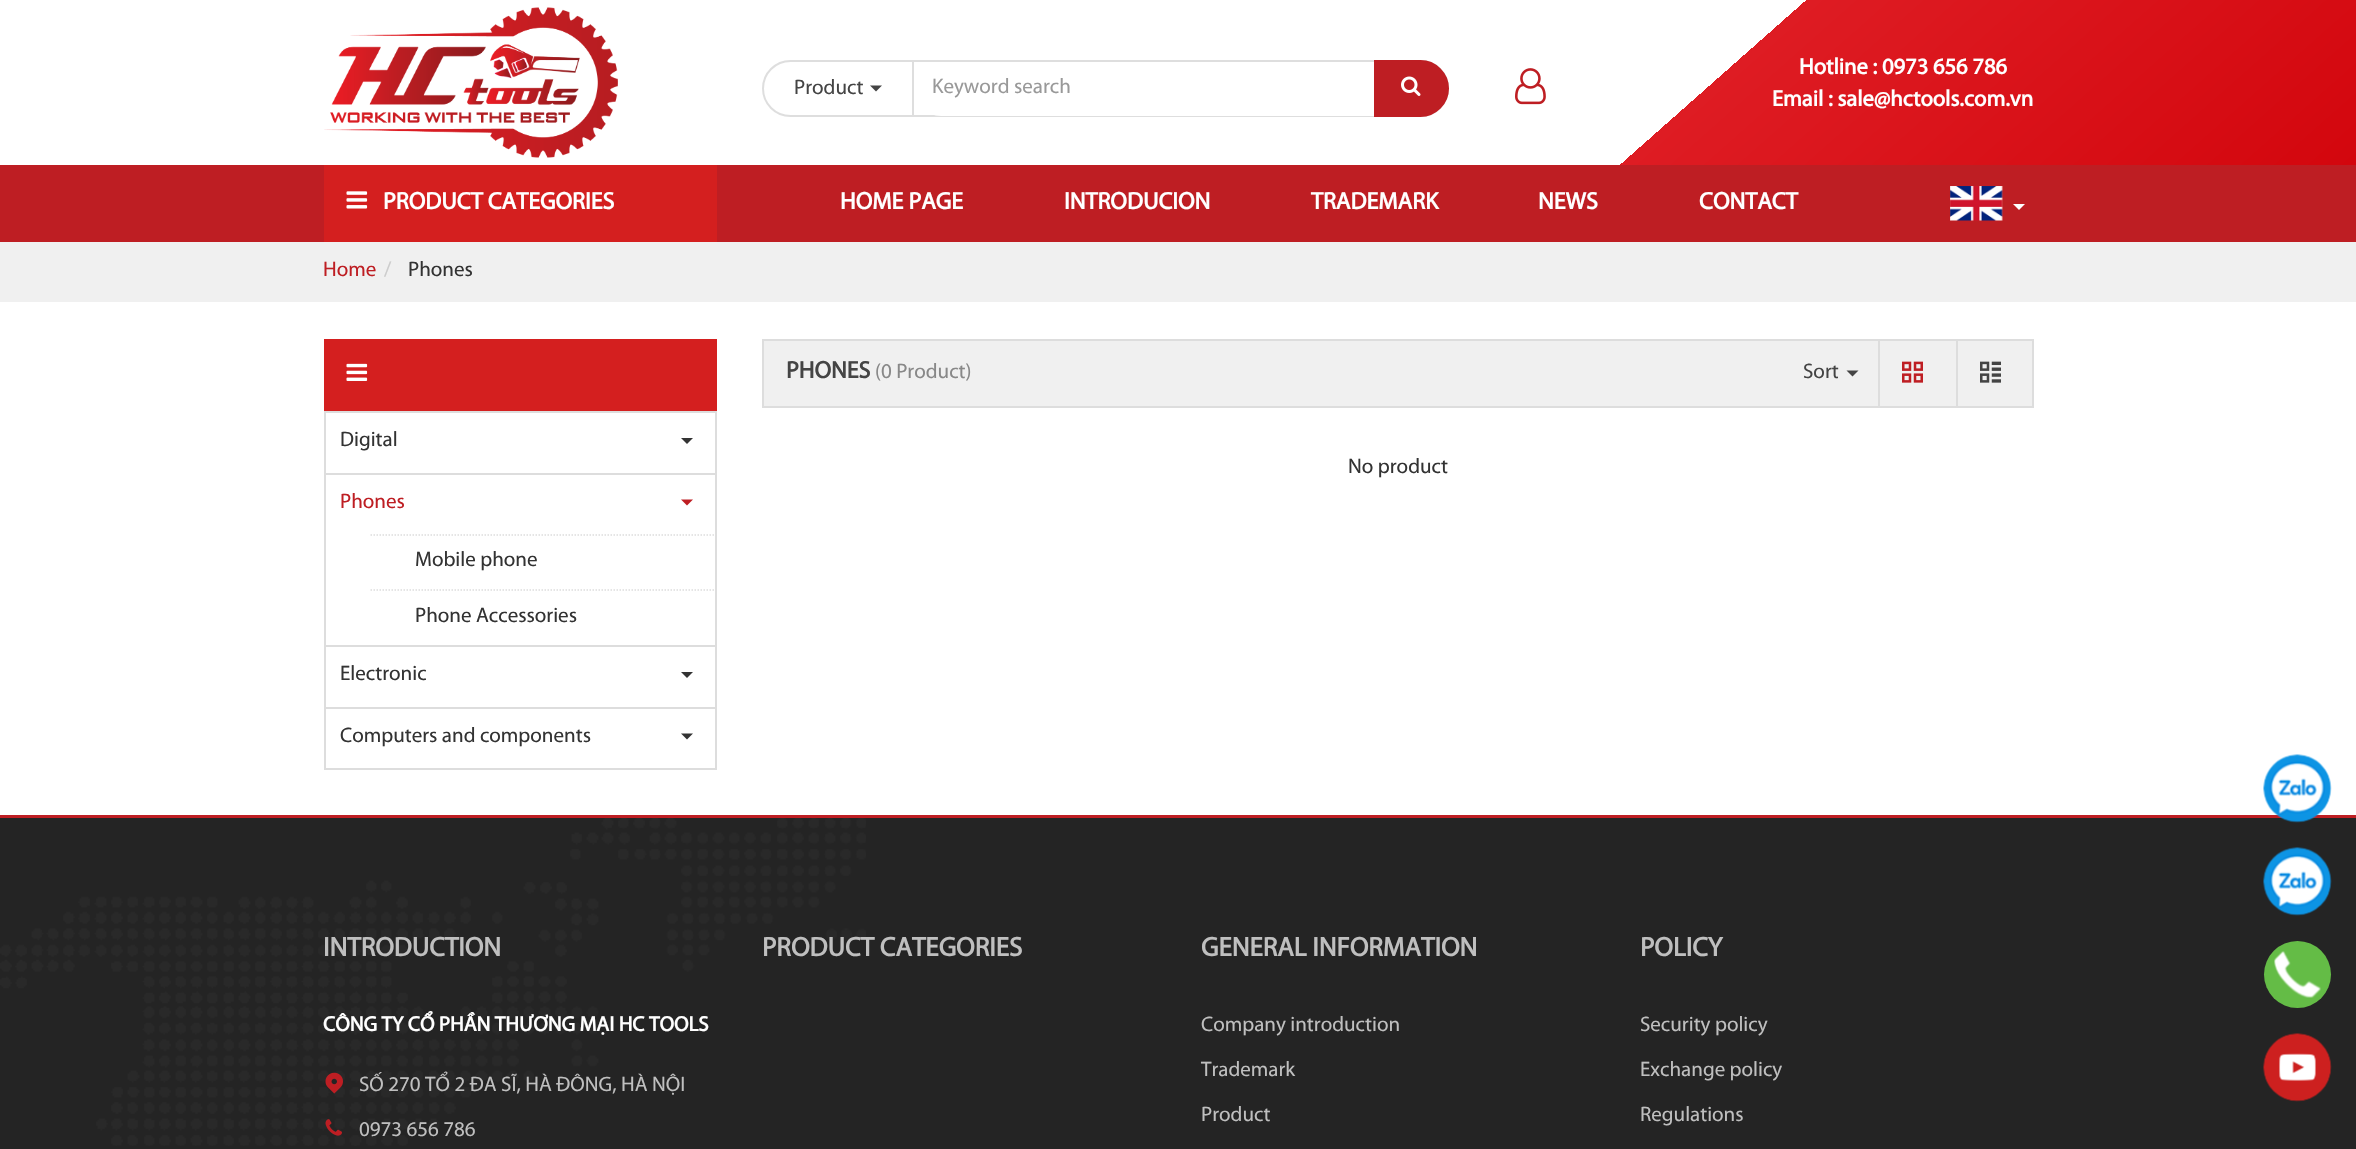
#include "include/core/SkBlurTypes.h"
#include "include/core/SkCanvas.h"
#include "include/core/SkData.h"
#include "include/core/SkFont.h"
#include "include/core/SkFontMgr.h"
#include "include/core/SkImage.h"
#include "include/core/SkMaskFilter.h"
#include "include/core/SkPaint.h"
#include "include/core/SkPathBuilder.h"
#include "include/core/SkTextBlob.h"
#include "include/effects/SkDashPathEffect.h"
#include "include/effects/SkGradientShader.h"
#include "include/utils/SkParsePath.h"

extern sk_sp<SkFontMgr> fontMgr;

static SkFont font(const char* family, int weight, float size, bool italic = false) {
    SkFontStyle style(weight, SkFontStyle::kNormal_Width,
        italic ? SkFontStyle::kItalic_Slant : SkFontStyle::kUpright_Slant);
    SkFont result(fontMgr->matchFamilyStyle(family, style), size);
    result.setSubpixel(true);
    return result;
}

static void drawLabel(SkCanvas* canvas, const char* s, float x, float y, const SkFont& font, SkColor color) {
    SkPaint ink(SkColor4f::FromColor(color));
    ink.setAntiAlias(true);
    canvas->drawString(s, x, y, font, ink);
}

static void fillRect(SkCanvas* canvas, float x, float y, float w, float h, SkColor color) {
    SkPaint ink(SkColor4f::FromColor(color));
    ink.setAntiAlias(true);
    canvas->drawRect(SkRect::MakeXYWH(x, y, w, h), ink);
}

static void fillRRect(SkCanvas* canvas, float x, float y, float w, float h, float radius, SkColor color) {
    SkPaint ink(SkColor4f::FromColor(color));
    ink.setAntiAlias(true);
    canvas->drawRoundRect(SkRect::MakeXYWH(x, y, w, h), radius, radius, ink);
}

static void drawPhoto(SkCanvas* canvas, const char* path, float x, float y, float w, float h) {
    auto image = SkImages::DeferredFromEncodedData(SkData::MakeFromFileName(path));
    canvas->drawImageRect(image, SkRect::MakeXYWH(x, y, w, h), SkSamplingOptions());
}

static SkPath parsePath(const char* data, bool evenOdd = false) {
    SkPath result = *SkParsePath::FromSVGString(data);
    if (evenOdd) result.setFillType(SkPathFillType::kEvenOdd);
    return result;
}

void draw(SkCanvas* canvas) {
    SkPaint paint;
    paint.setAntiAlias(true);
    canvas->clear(0xFFFFFFFF);
    {
        const SkColor colors[] = {0xFFFFFFFF, 0xFFFFFFFF, 0xFFDE1C23, 0xFFD3060D};
        const float stops[] = {0, 0.71f, 0.71f, 1};
        const SkPoint ends[] = {{620, -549}, {1737, 714}};
        paint.setShader(SkGradientShader::MakeLinear(ends, colors, stops, 4, SkTileMode::kClamp));
        paint.setAlpha(255);
    }
    canvas->drawRect(SkRect::MakeXYWH(1620, 0, 736, 165), paint);
    drawPhoto(canvas, "assets/img1.png", 324, 7, 294, 151);
    paint.setStroke(true);
    paint.setStrokeWidth(2);
    paint.setShader(nullptr);
    paint.setColor(0xFFDEDEDE);
    canvas->drawRoundRect(SkRect::MakeXYWH(763, 61, 685, 55), 27.5f, 27.5f, paint);
    fillRect(canvas, 912, 62, 2, 54, 0xFFDEDEDE);
    SkFont font1 = font("Myriad", 400, 21);
    drawLabel(canvas, "Product", 794, 94, font1, 0xFF444444);
    paint.setStroke(false);
    paint.setColor(0xFF444444);
    canvas->drawPath(parsePath("M870 85.5H882L876 91.5Z"), paint);
    fillRRect(canvas, 914, 62, 534, 54, 27, 0xFFFFFFFF);
    drawLabel(canvas, "Keyword search", 932, 93, font1, 0xFF999999);
    paint.setColor(0xFFBE1E23);
    canvas->drawPath(parsePath("M1375 61H1420.5C1435.5 61 1448 73.5 1448 88.5C1448 103.5 1435.5 116 1420.5 116H1375Z"), paint);
    paint.setStroke(true);
    canvas->drawPath(parsePath("M1375 61H1420.5C1435.5 61 1448 73.5 1448 88.5C1448 103.5 1435.5 116 1420.5 116H1375Z"), paint);
    drawPhoto(canvas, "assets/img2.png", 1401, 76, 20, 20);
    drawPhoto(canvas, "assets/img3.png", 1515, 68, 31, 37);
    SkFont font2 = font("Myriad", 700, 22.5f);
    drawLabel(canvas, "Hotline : 0973 656 786", 1799, 74, font2, 0xFFFFFFFF);
    drawLabel(canvas, "Email : sale@hctools.com.vn", 1772, 106, font2, 0xFFFFFFFF);
    fillRect(canvas, 0, 165, 2356, 77, 0xFFBE1E23);
    fillRect(canvas, 324, 165, 393, 77, 0xFFD41F1F);
    drawPhoto(canvas, "assets/img4.png", 346, 191, 22, 18);
    SkFont font3 = font("Myriad", 700, 24);
    drawLabel(canvas, "PRODUCT CATEGORIES", 383, 209, font3, 0xFFFFFFFF);
    drawLabel(canvas, "HOME PAGE", 840, 209, font3, 0xFFFFFFFF);
    drawLabel(canvas, "INTRODUCION", 1064, 209, font3, 0xFFFFFFFF);
    drawLabel(canvas, "TRADEMARK", 1311, 209, font3, 0xFFFFFFFF);
    drawLabel(canvas, "NEWS", 1538, 209, font3, 0xFFFFFFFF);
    drawLabel(canvas, "CONTACT", 1699, 209, font3, 0xFFFFFFFF);
    drawPhoto(canvas, "assets/img5.png", 1950, 186, 53, 35);
    paint.setStroke(false);
    paint.setColor(0xFFFFFFFF);
    canvas->drawPath(parsePath("M2013 204H2025L2019 210Z"), paint);
    fillRect(canvas, 0, 242, 2356, 60, 0xFFF0F0F0);
    drawLabel(canvas, "Home", 323, 276, font1, 0xFFBE1E23);
    drawLabel(canvas, "/", 384, 276, font1, 0xFFCCCCCC);
    drawLabel(canvas, "Phones", 408, 276, font1, 0xFF333333);
    fillRect(canvas, 324, 339, 393, 72, 0xFFD41F1F);
    drawPhoto(canvas, "assets/img6.png", 346, 363, 22, 18);
    paint.setStroke(true);
    paint.setColor(0xFFDDDDDD);
    canvas->drawRect(SkRect::MakeXYWH(325, 412, 391, 357), paint);
    fillRect(canvas, 326, 473, 390, 2, 0xFFDDDDDD);
    drawLabel(canvas, "Digital", 340, 446, font1, 0xFF333333);
    paint.setStroke(false);
    paint.setColor(0xFF333333);
    canvas->drawPath(parsePath("M681 438H693L687 444Z"), paint);
    fillRect(canvas, 326, 645, 390, 2, 0xFFDDDDDD);
    drawLabel(canvas, "Phones", 340, 508, font1, 0xFFBE1E23);
    paint.setColor(0xFFBE1E23);
    canvas->drawPath(parsePath("M681 499.5H693L687 505.5Z"), paint);
    paint.setStroke(true);
    paint.setStrokeWidth(1.5f);
    paint.setColor(0xFFDDDDDD);
    paint.setPathEffect(SkDashPathEffect::Make({{1.5f, 1.5f}}, 0));
    canvas->drawPath(parsePath("M370.5 535H715.5"), paint);
    paint.setPathEffect(nullptr);
    drawLabel(canvas, "Mobile phone", 415, 566, font1, 0xFF333333);
    paint.setPathEffect(SkDashPathEffect::Make({{1.5f, 1.5f}}, 0));
    canvas->drawPath(parsePath("M370.5 590H715.5"), paint);
    paint.setPathEffect(nullptr);
    drawLabel(canvas, "Phone Accessories", 415, 622, font1, 0xFF333333);
    fillRect(canvas, 326, 707, 390, 2, 0xFFDDDDDD);
    drawLabel(canvas, "Electronic", 340, 680, font1, 0xFF333333);
    paint.setStroke(false);
    paint.setColor(0xFF333333);
    canvas->drawPath(parsePath("M681 672H693L687 678Z"), paint);
    drawLabel(canvas, "Computers and components", 340, 742, font1, 0xFF333333);
    canvas->drawPath(parsePath("M681 733.5H693L687 739.5Z"), paint);
    paint.setColor(0xFFF0F0F0);
    canvas->drawRect(SkRect::MakeXYWH(763, 340, 1270, 67), paint);
    paint.setStroke(true);
    paint.setStrokeWidth(2);
    paint.setColor(0xFFDDDDDD);
    canvas->drawRect(SkRect::MakeXYWH(763, 340, 1270, 67), paint);
    drawLabel(canvas, "PHONES", 786, 378, font3, 0xFF444444);
    drawLabel(canvas, "(0 Product)", 875, 378, font1, 0xFF888888);
    drawLabel(canvas, "Sort", 1803, 378, font1, 0xFF444444);
    paint.setStroke(false);
    paint.setColor(0xFF444444);
    canvas->drawPath(parsePath("M1846.5 370.5H1858.5L1852.5 376.5Z"), paint);
    fillRect(canvas, 1878, 341, 2, 66, 0xFFDDDDDD);
    drawPhoto(canvas, "assets/img7.png", 1902, 361, 21, 22);
    fillRect(canvas, 1956, 341, 2, 66, 0xFFDDDDDD);
    drawPhoto(canvas, "assets/img8.png", 1980, 361, 21, 22);
    drawLabel(canvas, "No product", 1348, 473, font1, 0xFF333333);
    fillRect(canvas, 0, 818, 2356, 331, 0xFF242424);
    drawPhoto(canvas, "assets/img9.png", 0, 818, 866, 328);
    fillRect(canvas, 0, 815, 2356, 3, 0xFFBE1E23);
    SkFont font4 = font("Myriad", 700, 27);
    drawLabel(canvas, "INTRODUCTION", 323, 956, font4, 0xFFBFBFBF);
    SkFont font5 = font("Myriad", 700, 21);
    drawLabel(canvas, "CÔNG TY CỔ PHẦN THƯƠNG MẠI HC TOOLS", 323, 1031, font5, 0xFFFFFFFF);
    drawPhoto(canvas, "assets/img10.png", 325, 1072, 18, 22);
    drawLabel(canvas, "SỐ 270 TỔ 2 ĐA SĨ, HÀ ĐÔNG, HÀ NỘI", 359, 1091, font1, 0xFFBFBFBF);
    drawPhoto(canvas, "assets/img11.png", 325, 1119, 17, 17);
    drawLabel(canvas, "0973 656 786", 359, 1136, font1, 0xFFBFBFBF);
    drawLabel(canvas, "PRODUCT CATEGORIES", 762, 956, font4, 0xFFBFBFBF);
    drawLabel(canvas, "GENERAL INFORMATION", 1201, 956, font4, 0xFFBFBFBF);
    drawLabel(canvas, "Company introduction", 1201, 1031, font1, 0xFFBFBFBF);
    drawLabel(canvas, "Trademark", 1201, 1076, font1, 0xFFBFBFBF);
    drawLabel(canvas, "Product", 1201, 1121, font1, 0xFFBFBFBF);
    drawLabel(canvas, "POLICY", 1640, 956, font4, 0xFFBFBFBF);
    drawLabel(canvas, "Security policy", 1640, 1031, font1, 0xFFBFBFBF);
    drawLabel(canvas, "Exchange policy", 1640, 1076, font1, 0xFFBFBFBF);
    drawLabel(canvas, "Regulations", 1640, 1121, font1, 0xFFBFBFBF);
    drawPhoto(canvas, "assets/img12.png", 2263, 754, 69, 69);
    drawPhoto(canvas, "assets/img13.png", 2263, 847, 69, 69);
    paint.setColor(0xFF64BC46);
    canvas->drawCircle(2297.5f, 974.5f, 33.5f, paint);
    drawPhoto(canvas, "assets/img14.png", 2274, 951, 47, 47);
    drawPhoto(canvas, "assets/img15.png", 2263, 1033, 69, 69);
}
